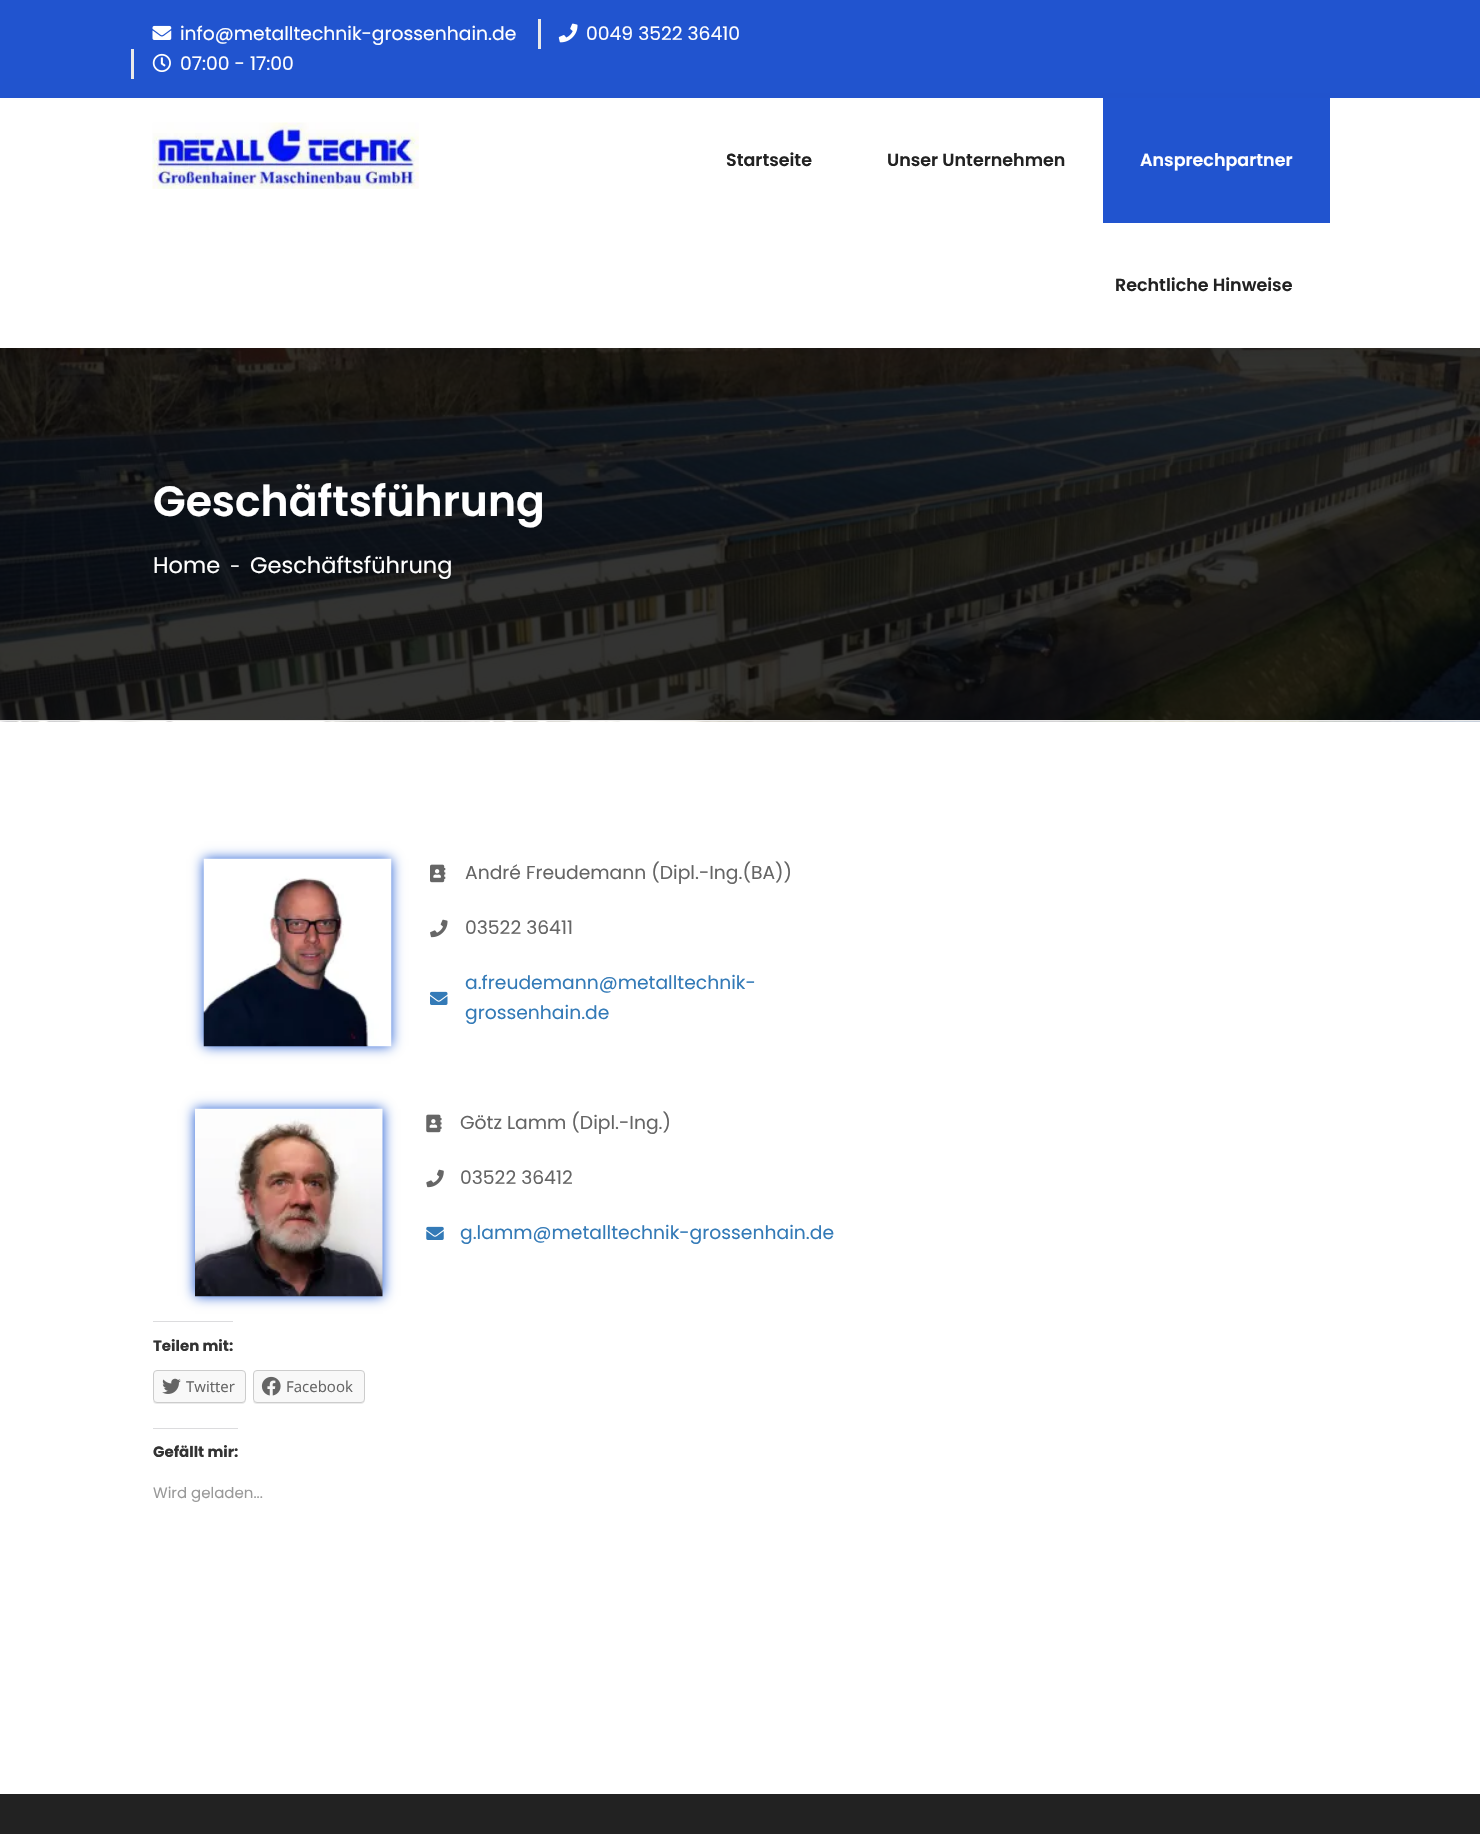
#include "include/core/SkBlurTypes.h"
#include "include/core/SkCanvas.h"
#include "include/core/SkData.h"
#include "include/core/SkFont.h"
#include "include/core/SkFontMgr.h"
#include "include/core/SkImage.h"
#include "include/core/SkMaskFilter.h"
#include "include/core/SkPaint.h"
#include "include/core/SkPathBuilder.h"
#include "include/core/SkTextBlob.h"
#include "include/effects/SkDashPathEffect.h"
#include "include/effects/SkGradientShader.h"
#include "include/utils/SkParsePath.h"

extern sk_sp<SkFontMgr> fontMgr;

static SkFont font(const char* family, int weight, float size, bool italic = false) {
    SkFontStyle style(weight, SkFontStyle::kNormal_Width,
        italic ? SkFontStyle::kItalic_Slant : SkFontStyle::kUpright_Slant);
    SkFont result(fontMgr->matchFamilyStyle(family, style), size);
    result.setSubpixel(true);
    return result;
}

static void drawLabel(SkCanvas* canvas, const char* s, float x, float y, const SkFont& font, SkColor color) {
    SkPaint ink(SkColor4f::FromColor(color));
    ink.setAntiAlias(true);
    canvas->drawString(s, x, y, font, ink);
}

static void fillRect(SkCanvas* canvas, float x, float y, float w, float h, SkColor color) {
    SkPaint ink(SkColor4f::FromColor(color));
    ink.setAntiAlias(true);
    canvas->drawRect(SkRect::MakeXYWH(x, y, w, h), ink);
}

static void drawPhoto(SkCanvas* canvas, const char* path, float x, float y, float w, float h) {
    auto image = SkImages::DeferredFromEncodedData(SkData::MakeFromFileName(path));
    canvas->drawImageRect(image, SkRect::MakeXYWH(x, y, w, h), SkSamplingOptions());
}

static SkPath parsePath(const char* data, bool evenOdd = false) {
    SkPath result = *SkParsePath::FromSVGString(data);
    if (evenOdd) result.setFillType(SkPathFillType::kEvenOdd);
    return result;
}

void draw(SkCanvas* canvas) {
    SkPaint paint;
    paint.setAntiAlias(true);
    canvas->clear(0xFFFFFFFF);
    fillRect(canvas, 0, 0, 1480, 98, 0xFF2154CF);
    drawPhoto(canvas, "assets/img1.png", 152, 25, 20, 15);
    SkFont font1 = font("Poppins", 400, 18.75f);
    drawLabel(canvas, "info@metalltechnik-grossenhain.de", 180, 40, font1, 0xFFFFFFFF);
    fillRect(canvas, 538, 19, 3, 30, 0xFFE9E9E9);
    drawPhoto(canvas, "assets/img2.png", 558, 23, 20, 20);
    drawLabel(canvas, "0049 3522 36410", 586, 40, font1, 0xFFFFFFFF);
    drawPhoto(canvas, "assets/img5.png", 0, 348, 1480, 374);
    paint.setColor(0x17000000);
    paint.setMaskFilter(SkMaskFilter::MakeBlur(kNormal_SkBlurStyle, 12.5f));
    canvas->drawRect(SkRect::MakeXYWH(3, 115, 1472, 243), paint);
    paint.setMaskFilter(nullptr);
    fillRect(canvas, 131, 49, 3, 30, 0xFFE9E9E9);
    drawPhoto(canvas, "assets/img3.png", 152, 53, 19, 19);
    drawLabel(canvas, "07:00 - 17:00", 180, 70, font1, 0xFFFFFFFF);
    fillRect(canvas, 0, 100, 1480, 248, 0xFFFFFFFF);
    drawPhoto(canvas, "assets/img4.png", 152, 122, 267, 67);
    SkFont font2 = font("Poppins", 600, 17.5f);
    drawLabel(canvas, "Startseite", 726, 166, font2, 0xFF222222);
    drawLabel(canvas, "Unser Unternehmen", 887, 166, font2, 0xFF222222);
    fillRect(canvas, 1103, 98, 227, 125, 0xFF2154CF);
    drawLabel(canvas, "Ansprechpartner", 1140, 166, font2, 0xFFFFFFFF);
    drawLabel(canvas, "Rechtliche Hinweise", 1115, 291, font2, 0xFF222222);
    fillRect(canvas, 0, 720, 1480, 1, 0xFFE8E8E8);
    SkFont font3 = font("Poppins", 600, 42.5f);
    drawLabel(canvas, "Geschäftsführung", 153, 516, font3, 0xFFFFFFFF);
    SkFont font4 = font("Poppins", 400, 22.5f);
    drawLabel(canvas, "Home", 153, 573, font4, 0xFFFFFFFF);
    drawLabel(canvas, "-", 230, 573, font1, 0xFFFFFFFF);
    drawLabel(canvas, "Geschäftsführung", 250, 573, font4, 0xFFFFFFFF);
    paint.setColor(0xFF1856D3);
    paint.setMaskFilter(SkMaskFilter::MakeBlur(kNormal_SkBlurStyle, 6));
    canvas->drawRect(SkRect::MakeXYWH(204, 859, 187, 187), paint);
    paint.setMaskFilter(nullptr);
    drawPhoto(canvas, "assets/img6.png", 203, 858, 189, 189);
    drawPhoto(canvas, "assets/img7.png", 430, 864, 16, 19);
    drawLabel(canvas, "André Freudemann (Dipl.-Ing.(BA))", 465, 879, font1, 0xFF656565);
    drawPhoto(canvas, "assets/img8.png", 430, 919, 18, 19);
    drawLabel(canvas, "03522 36411", 465, 934, font1, 0xFF656565);
    drawPhoto(canvas, "assets/img9.png", 430, 991, 18, 14);
    drawLabel(canvas, "a.freudemann@metalltechnik-", 465, 989, font1, 0xFF337AB7);
    drawLabel(canvas, "grossenhain.de", 465, 1019, font1, 0xFF337AB7);
    paint.setMaskFilter(SkMaskFilter::MakeBlur(kNormal_SkBlurStyle, 6));
    canvas->drawRect(SkRect::MakeXYWH(195, 1109, 188, 187), paint);
    paint.setMaskFilter(nullptr);
    drawPhoto(canvas, "assets/img10.png", 195, 1108, 188, 189);
    drawPhoto(canvas, "assets/img11.png", 426, 1114, 16, 19);
    drawLabel(canvas, "Götz Lamm (Dipl.-Ing.)", 460, 1129, font1, 0xFF656565);
    drawPhoto(canvas, "assets/img12.png", 426, 1169, 18, 19);
    drawLabel(canvas, "03522 36412", 460, 1184, font1, 0xFF656565);
    drawPhoto(canvas, "assets/img13.png", 426, 1226, 18, 14);
    drawLabel(canvas, "g.lamm@metalltechnik-grossenhain.de", 460, 1239, font1, 0xFF337AB7);
    fillRect(canvas, 153, 1321, 80, 1, 0xFFDCDCDE);
    SkFont font5 = font("Poppins", 700, 15);
    drawLabel(canvas, "Teilen mit:", 153, 1351, font5, 0xFF333333);
    paint.setColor(0xFFEBEBEB);
    canvas->drawPath(parsePath("M153 1401C153 1403 155 1404 157 1404H242C244 1404 246 1402 246 1400C245 1402 244 1402 242 1402H156C155 1402 154 1402 153 1401Z"), paint);
    paint.setColor(0xFFF8F8F8);
    canvas->drawRoundRect(SkRect::MakeXYWH(153.5f, 1370.5f, 92, 32), 3.5f, 3.5f, paint);
    paint.setStroke(true);
    paint.setStrokeWidth(1);
    paint.setColor(0xFFCCCCCC);
    canvas->drawRoundRect(SkRect::MakeXYWH(153.5f, 1370.5f, 92, 32), 3.5f, 3.5f, paint);
    drawPhoto(canvas, "assets/img14.png", 162, 1378, 19, 16);
    SkFont font6 = font("Open Sans", 400, 15);
    drawLabel(canvas, "Twitter", 186, 1392, font6, 0xFF656565);
    paint.setStroke(false);
    paint.setColor(0xFFEBEBEB);
    canvas->drawPath(parsePath("M253 1401C253 1403 255 1404 257 1404H361C363 1404 365 1402 365 1400V1399C365 1401 363 1402 361 1402H256C255 1402 254 1402 253 1401Z"), paint);
    paint.setColor(0xFFF8F8F8);
    canvas->drawRoundRect(SkRect::MakeXYWH(253.5f, 1370.5f, 111, 32), 3.5f, 3.5f, paint);
    paint.setStroke(true);
    paint.setColor(0xFFCCCCCC);
    canvas->drawRoundRect(SkRect::MakeXYWH(253.5f, 1370.5f, 111, 32), 3.5f, 3.5f, paint);
    drawPhoto(canvas, "assets/img15.png", 261, 1376, 20, 20);
    drawLabel(canvas, "Facebook", 286, 1392, font6, 0xFF656565);
    fillRect(canvas, 153, 1428, 85, 1, 0xFFDCDCDE);
    drawLabel(canvas, "Gefällt mir:", 153, 1457, font5, 0xFF333333);
    SkFont font7 = font("Poppins", 400, 15);
    drawLabel(canvas, "Wird geladen...", 153, 1498, font7, 0xFF999999);
    fillRect(canvas, 0, 1794, 1480, 40, 0xFF222222);
}
